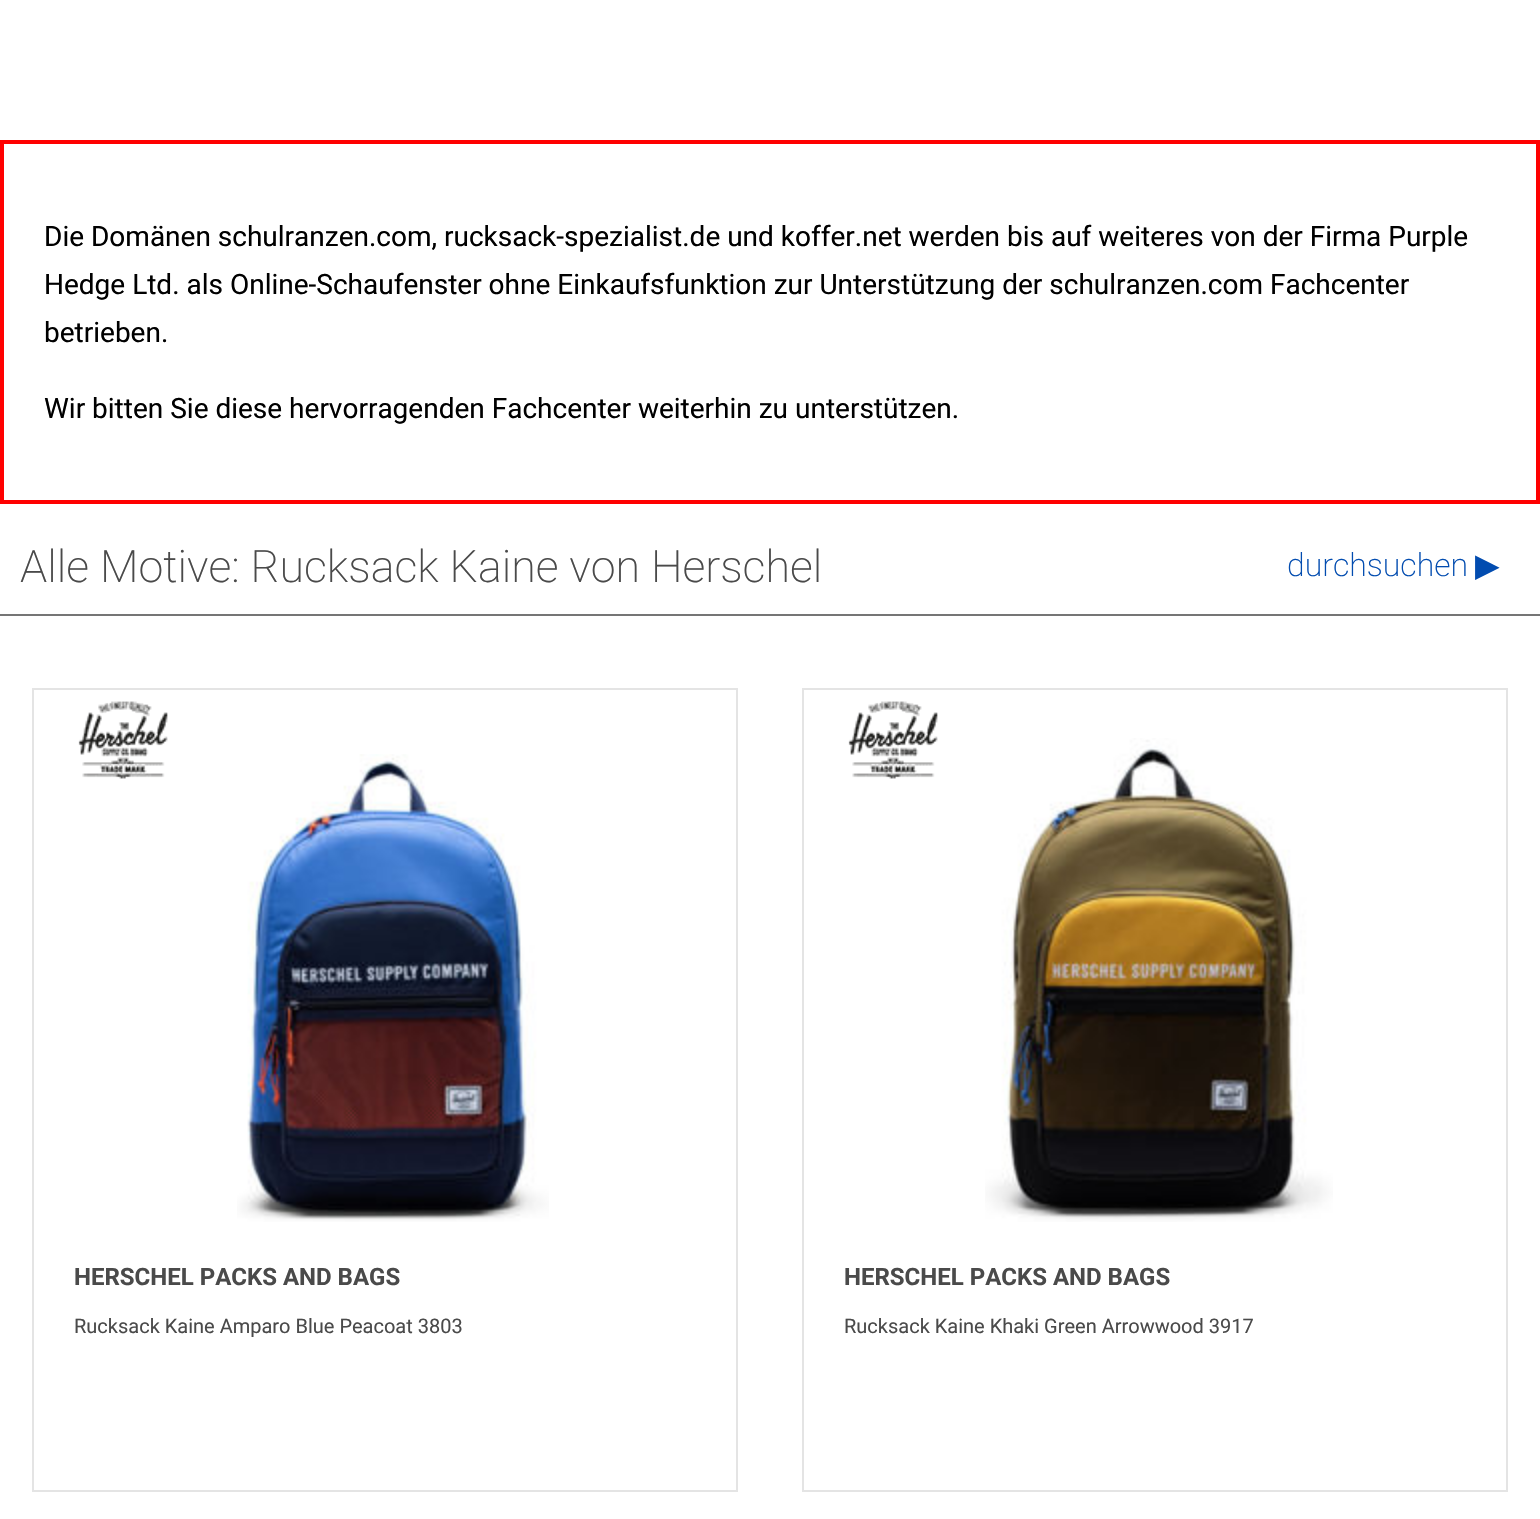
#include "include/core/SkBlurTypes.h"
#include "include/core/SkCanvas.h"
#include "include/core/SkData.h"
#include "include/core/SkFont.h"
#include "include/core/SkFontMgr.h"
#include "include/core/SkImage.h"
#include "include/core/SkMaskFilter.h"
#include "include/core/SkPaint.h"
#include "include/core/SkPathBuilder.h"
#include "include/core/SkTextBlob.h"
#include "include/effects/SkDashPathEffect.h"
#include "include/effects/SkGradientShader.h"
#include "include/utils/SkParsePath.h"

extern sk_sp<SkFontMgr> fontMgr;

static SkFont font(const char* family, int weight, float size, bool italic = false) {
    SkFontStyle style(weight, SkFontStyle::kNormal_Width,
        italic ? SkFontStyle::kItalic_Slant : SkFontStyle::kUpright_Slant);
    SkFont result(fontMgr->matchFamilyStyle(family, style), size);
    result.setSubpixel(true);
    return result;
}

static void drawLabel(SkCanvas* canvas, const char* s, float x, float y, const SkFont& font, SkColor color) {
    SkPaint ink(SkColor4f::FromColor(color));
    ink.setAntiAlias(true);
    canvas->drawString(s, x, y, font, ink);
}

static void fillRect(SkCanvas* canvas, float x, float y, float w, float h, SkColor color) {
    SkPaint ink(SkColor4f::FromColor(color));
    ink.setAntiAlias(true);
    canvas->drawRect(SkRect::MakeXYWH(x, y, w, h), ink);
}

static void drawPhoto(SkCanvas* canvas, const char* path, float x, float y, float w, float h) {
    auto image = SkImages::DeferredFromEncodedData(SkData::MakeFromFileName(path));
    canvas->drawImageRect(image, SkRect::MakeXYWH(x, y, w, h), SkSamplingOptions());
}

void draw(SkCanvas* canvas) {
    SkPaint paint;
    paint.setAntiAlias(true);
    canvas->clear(0xFFFFFFFF);
    paint.setStroke(true);
    paint.setStrokeWidth(4);
    paint.setColor(0xFFFF0000);
    canvas->drawRect(SkRect::MakeXYWH(2, 142, 1536, 360), paint);
    SkFont font1 = font("Roboto", 400, 28);
    drawLabel(canvas, "Die Domänen schulranzen.com, rucksack-spezialist.de und koffer.net werden bis auf weiteres von der Firma Purple", 44, 246, font1, 0xFF000000);
    drawLabel(canvas, "Hedge Ltd. als Online-Schaufenster ohne Einkaufsfunktion zur Unterstützung der schulranzen.com Fachcenter", 44, 294, font1, 0xFF000000);
    drawLabel(canvas, "betrieben.", 44, 342, font1, 0xFF000000);
    drawLabel(canvas, "Wir bitten Sie diese hervorragenden Fachcenter weiterhin zu unterstützen.", 44, 418, font1, 0xFF000000);
    fillRect(canvas, 0, 614, 1540, 2, 0xFF757575);
    SkFont font2 = font("Roboto", 200, 44.75f);
    drawLabel(canvas, "Alle Motive: Rucksack Kaine von Herschel", 20, 582, font2, 0xFF4A4A4A);
    SkFont font3 = font("Roboto", 200, 32);
    drawLabel(canvas, "durchsuchen", 1287, 576, font3, 0xFF024CB0);
    SkFont font4 = font("DejaVu Sans", 400, 32);
    drawLabel(canvas, "▶", 1475, 576, font4, 0xFF024CB0);
    paint.setStrokeWidth(2);
    paint.setColor(0xFFE4E4E4);
    canvas->drawRect(SkRect::MakeXYWH(33, 689, 704, 802), paint);
    drawPhoto(canvas, "assets/img1.png", 78, 701, 90, 78);
    drawPhoto(canvas, "assets/img2.png", 237, 754, 312, 468);
    SkFont font5 = font("Roboto", 700, 24);
    drawLabel(canvas, "HERSCHEL PACKS AND BAGS", 74, 1285, font5, 0xFF4A4A4A);
    SkFont font6 = font("Roboto", 400, 20);
    drawLabel(canvas, "Rucksack Kaine Amparo Blue Peacoat 3803", 74, 1333, font6, 0xFF4A4A4A);
    canvas->drawRect(SkRect::MakeXYWH(803, 689, 704, 802), paint);
    drawPhoto(canvas, "assets/img1.png", 848, 701, 90, 78);
    drawPhoto(canvas, "assets/img3.png", 985, 738, 348, 484);
    drawLabel(canvas, "HERSCHEL PACKS AND BAGS", 844, 1285, font5, 0xFF4A4A4A);
    drawLabel(canvas, "Rucksack Kaine Khaki Green Arrowwood 3917", 844, 1333, font6, 0xFF4A4A4A);
}
